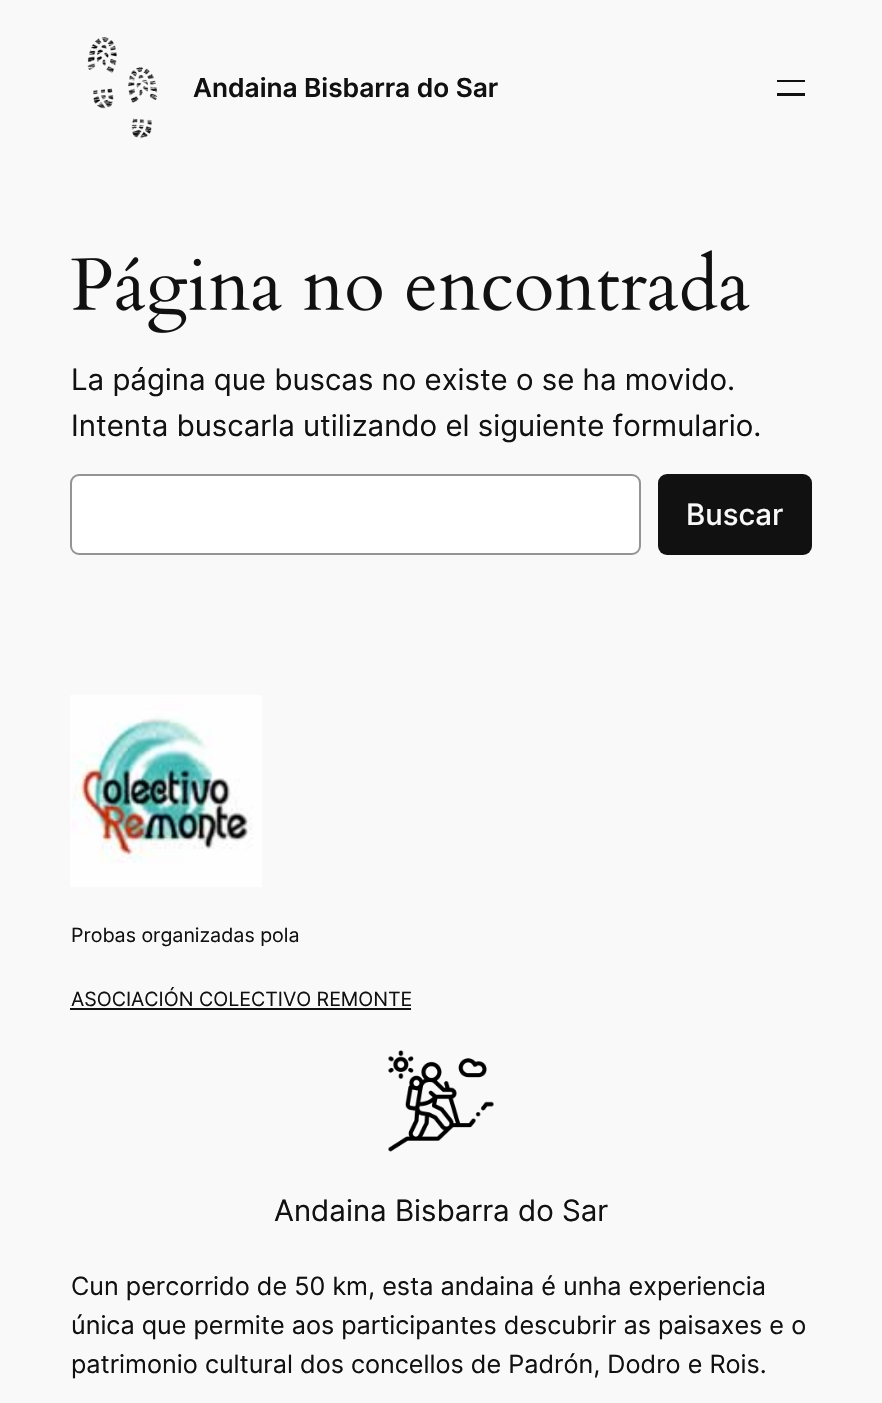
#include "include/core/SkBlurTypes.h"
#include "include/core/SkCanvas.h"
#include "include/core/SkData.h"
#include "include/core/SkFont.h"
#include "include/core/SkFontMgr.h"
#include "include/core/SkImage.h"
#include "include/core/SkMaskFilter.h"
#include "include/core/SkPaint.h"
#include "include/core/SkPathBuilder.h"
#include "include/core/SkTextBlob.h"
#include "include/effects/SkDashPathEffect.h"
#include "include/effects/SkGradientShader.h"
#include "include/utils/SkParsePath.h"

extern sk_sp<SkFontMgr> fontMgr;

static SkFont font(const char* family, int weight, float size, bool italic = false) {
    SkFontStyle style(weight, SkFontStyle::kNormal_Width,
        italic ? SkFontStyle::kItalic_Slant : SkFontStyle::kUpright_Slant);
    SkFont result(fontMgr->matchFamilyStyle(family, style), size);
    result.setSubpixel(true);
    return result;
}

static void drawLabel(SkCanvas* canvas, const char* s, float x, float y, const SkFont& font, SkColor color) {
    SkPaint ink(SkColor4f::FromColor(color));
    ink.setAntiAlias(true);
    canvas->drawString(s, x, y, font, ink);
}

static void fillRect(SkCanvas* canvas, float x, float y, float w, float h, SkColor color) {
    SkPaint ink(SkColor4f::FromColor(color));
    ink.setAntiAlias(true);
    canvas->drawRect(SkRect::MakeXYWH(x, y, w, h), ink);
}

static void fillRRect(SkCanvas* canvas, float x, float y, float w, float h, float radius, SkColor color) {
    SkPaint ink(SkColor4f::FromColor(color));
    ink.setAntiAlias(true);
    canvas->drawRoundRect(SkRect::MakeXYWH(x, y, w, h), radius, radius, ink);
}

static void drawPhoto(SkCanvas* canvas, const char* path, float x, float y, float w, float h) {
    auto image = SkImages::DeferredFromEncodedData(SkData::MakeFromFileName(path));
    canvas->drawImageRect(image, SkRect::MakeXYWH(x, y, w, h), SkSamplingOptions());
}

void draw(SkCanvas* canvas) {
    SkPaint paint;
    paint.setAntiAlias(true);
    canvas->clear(0xFFF9F9F9);
    drawPhoto(canvas, "assets/img1.png", 87, 37, 71, 102);
    SkFont font1 = font("Inter", 600, 26.25f);
    drawLabel(canvas, "Andaina Bisbarra do Sar", 193, 97, font1, 0xFF111111);
    fillRect(canvas, 777, 80, 28, 2, 0xFF111111);
    fillRect(canvas, 777, 93, 28, 3, 0xFF111111);
    drawPhoto(canvas, "assets/img2.png", 71, 250, 679, 83);
    SkFont font2 = font("Inter", 400, 29.4f);
    drawLabel(canvas, "La página que buscas no existe o se ha movido.", 71, 390, font2, 0xFF111111);
    drawLabel(canvas, "Intenta buscarla utilizando el siguiente formulario.", 71, 436, font2, 0xFF111111);
    paint.setColor(0xFFFFFFFF);
    canvas->drawRoundRect(SkRect::MakeXYWH(71, 475, 569, 79), 8, 8, paint);
    paint.setStroke(true);
    paint.setStrokeWidth(2);
    paint.setColor(0xFF949494);
    canvas->drawRoundRect(SkRect::MakeXYWH(71, 475, 569, 79), 8, 8, paint);
    fillRRect(canvas, 658, 474, 154, 81, 9, 0xFF111111);
    SkFont font3 = font("Inter", 500, 29.4f);
    drawLabel(canvas, "Buscar", 686, 525, font3, 0xFFF9F9F9);
    drawPhoto(canvas, "assets/img3.png", 70, 695, 192, 192);
    SkFont font4 = font("Inter", 400, 19.6f);
    drawLabel(canvas, "Probas organizadas pola", 71, 942, font4, 0xFF111111);
    drawLabel(canvas, "ASOCIACIÓN COLECTIVO REMONTE", 71, 1006, font4, 0xFF111111);
    fillRect(canvas, 70, 1008, 341, 2, 0xFF111111);
    drawPhoto(canvas, "assets/img4.png", 388, 1050, 106, 102);
    drawLabel(canvas, "Andaina Bisbarra do Sar", 274, 1221, font2, 0xFF111111);
    SkFont font5 = font("Inter", 400, 25.2f);
    drawLabel(canvas, "Cun percorrido de 50 km, esta andaina é unha experiencia", 71, 1295, font5, 0xFF111111);
    drawLabel(canvas, "única que permite aos participantes descubrir as paisaxes e o", 71, 1334, font5, 0xFF111111);
    drawLabel(canvas, "patrimonio cultural dos concellos de Padrón, Dodro e Rois.", 71, 1373, font5, 0xFF111111);
}
